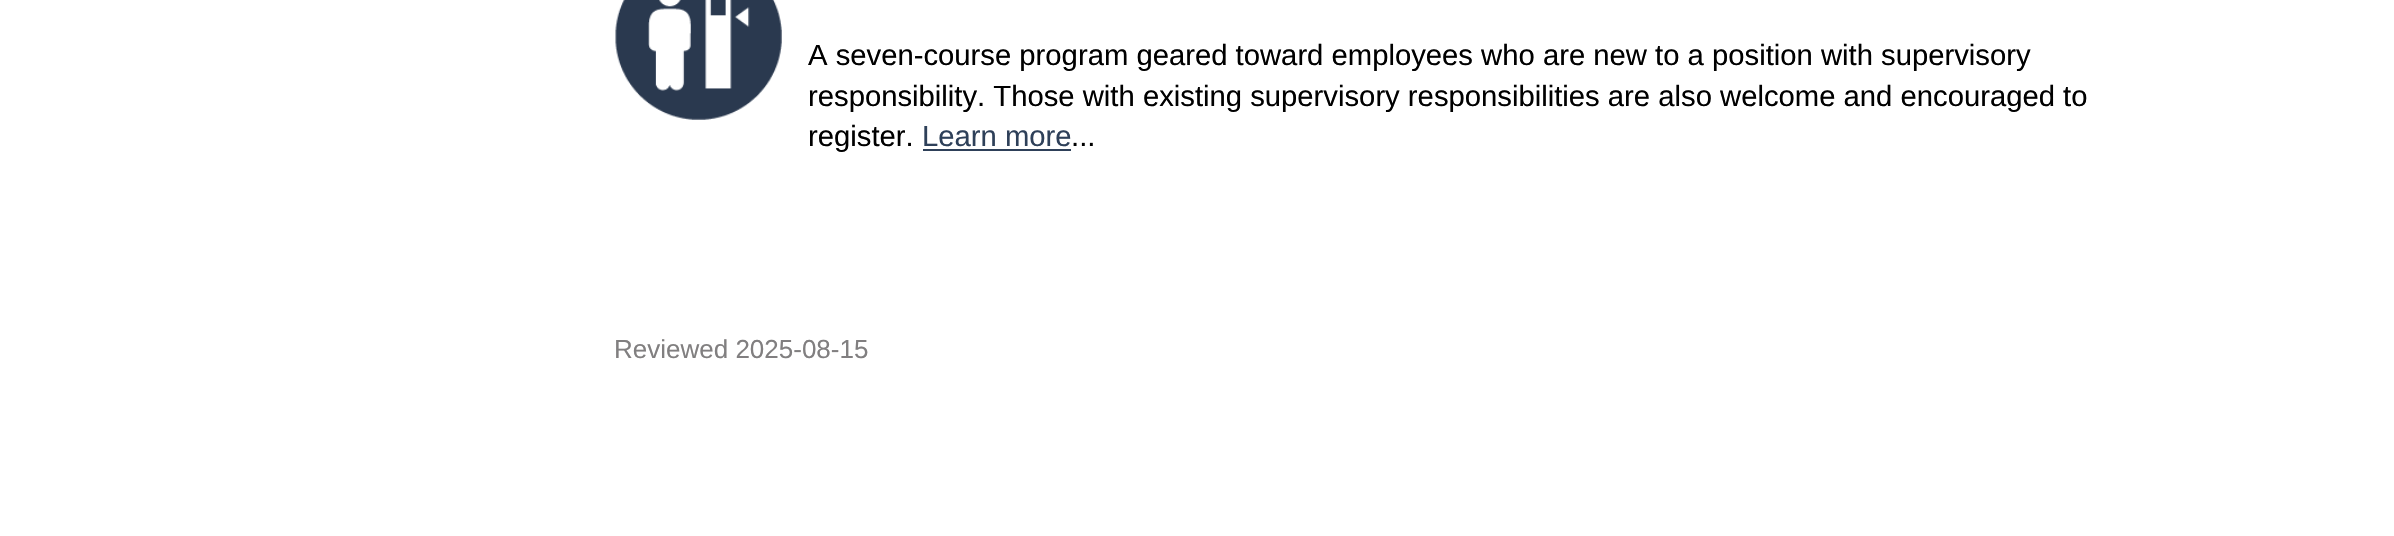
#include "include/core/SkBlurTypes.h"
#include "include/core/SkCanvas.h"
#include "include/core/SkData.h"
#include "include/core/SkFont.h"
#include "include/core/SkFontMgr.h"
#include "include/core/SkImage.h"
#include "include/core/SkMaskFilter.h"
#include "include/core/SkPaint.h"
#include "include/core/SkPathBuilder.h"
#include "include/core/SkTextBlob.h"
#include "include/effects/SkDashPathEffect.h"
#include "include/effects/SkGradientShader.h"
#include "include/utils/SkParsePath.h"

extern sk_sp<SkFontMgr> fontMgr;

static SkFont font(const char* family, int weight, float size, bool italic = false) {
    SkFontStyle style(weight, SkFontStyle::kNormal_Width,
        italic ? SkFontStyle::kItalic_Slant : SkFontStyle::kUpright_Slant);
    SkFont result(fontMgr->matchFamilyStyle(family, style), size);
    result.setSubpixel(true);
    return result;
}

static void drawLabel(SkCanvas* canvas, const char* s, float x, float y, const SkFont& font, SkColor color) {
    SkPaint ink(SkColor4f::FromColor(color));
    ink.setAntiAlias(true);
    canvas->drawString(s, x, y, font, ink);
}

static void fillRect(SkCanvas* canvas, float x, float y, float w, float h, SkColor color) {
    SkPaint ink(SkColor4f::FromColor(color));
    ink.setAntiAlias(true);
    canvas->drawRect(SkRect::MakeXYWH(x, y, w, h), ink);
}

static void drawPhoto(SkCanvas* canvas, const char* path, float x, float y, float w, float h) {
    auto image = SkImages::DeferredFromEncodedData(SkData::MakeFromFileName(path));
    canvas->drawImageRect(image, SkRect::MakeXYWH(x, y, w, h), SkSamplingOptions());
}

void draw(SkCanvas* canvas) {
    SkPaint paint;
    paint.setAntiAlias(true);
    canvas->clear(0xFFFFFFFF);
    drawPhoto(canvas, "assets/img1.png", 615, 0, 167, 120);
    SkFont font1 = font("Liberation Sans", 400, 29.25f);
    drawLabel(canvas, "A seven-course program geared toward employees who are new to a position with supervisory", 808, 65, font1, 0xFF000000);
    drawLabel(canvas, "responsibility. Those with existing supervisory responsibilities are also welcome and encouraged to", 808, 106, font1, 0xFF000000);
    drawLabel(canvas, "register.", 808, 146, font1, 0xFF000000);
    drawLabel(canvas, "Learn more", 922, 146, font1, 0xFF2E4059);
    fillRect(canvas, 923, 149, 148, 2, 0xFF2E4059);
    drawLabel(canvas, "...", 1071, 146, font1, 0xFF000000);
    SkFont font2 = font("Liberation Sans", 400, 26);
    drawLabel(canvas, "Reviewed 2025-08-15", 614, 358, font2, 0xFF817F80);
}
